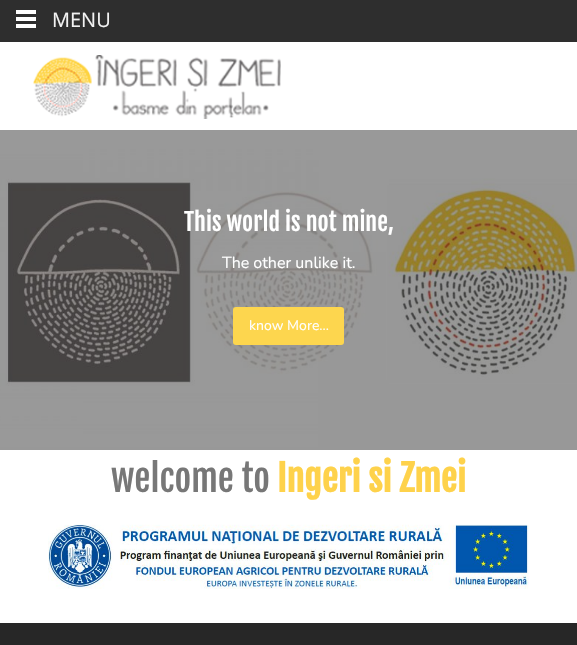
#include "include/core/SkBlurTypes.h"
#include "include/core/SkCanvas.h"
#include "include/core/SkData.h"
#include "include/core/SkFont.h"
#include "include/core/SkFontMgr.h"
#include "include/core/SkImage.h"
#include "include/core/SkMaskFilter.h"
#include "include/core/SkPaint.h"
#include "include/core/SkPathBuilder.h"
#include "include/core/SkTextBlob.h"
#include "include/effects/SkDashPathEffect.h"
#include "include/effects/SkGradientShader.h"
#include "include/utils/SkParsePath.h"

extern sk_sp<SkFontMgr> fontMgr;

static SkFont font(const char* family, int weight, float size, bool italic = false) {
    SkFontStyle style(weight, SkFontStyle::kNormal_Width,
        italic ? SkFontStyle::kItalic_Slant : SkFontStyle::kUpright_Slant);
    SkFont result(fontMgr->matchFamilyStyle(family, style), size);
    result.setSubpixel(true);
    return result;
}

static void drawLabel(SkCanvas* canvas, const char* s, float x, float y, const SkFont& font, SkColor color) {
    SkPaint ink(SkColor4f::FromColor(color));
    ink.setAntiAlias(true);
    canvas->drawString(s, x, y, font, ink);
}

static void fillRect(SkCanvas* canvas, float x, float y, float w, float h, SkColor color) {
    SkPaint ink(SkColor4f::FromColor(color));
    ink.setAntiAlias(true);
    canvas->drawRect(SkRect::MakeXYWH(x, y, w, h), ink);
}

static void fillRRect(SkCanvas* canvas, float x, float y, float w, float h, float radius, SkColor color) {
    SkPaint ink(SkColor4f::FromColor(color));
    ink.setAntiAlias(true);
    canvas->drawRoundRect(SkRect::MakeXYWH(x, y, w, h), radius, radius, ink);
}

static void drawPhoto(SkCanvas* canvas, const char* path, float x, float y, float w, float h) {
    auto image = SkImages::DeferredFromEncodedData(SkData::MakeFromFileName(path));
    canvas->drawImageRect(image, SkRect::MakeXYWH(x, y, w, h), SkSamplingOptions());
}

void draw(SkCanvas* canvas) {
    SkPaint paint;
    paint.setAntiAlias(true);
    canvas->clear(0xFFFFFFFF);
    fillRect(canvas, 0, 0, 577, 42, 0xFF2E2E2E);
    fillRect(canvas, 16, 10, 20, 4, 0xFFFFFFFF);
    fillRect(canvas, 16, 17, 20, 4, 0xFFFFFFFF);
    fillRect(canvas, 16, 24, 20, 4, 0xFFFFFFFF);
    SkFont font1 = font("Open Sans", 400, 20);
    drawLabel(canvas, "MENU", 52, 27, font1, 0xFFF2F2F2);
    drawPhoto(canvas, "assets/img1.png", 33, 55, 248, 64);
    drawPhoto(canvas, "assets/img2.png", 0, 130, 577, 320);
    SkFont font2 = font("Fjalla One", 400, 24);
    drawLabel(canvas, "This world is not mine,", 184, 231, font2, 0xFFFFFFFF);
    SkFont font3 = font("Nunito", 400, 16);
    drawLabel(canvas, "The other unlike it.", 222, 268, font3, 0xFFFFFFFF);
    fillRRect(canvas, 233, 307, 111, 38, 3, 0xFFFDD64E);
    SkFont font4 = font("Nunito", 400, 14);
    drawLabel(canvas, "know More...", 249, 330, font4, 0xFFFFFFFF);
    SkFont font5 = font("Fjalla One", 400, 36);
    drawLabel(canvas, "welcome to", 111, 492, font5, 0xFF777777);
    SkFont font6 = font("Fjalla One", 700, 36);
    drawLabel(canvas, "Ingeri si Zmei", 277, 492, font6, 0xFFFED24B);
    drawPhoto(canvas, "assets/img3.png", 48, 524, 481, 65);
    fillRect(canvas, 0, 623, 577, 22, 0xFF272727);
}
